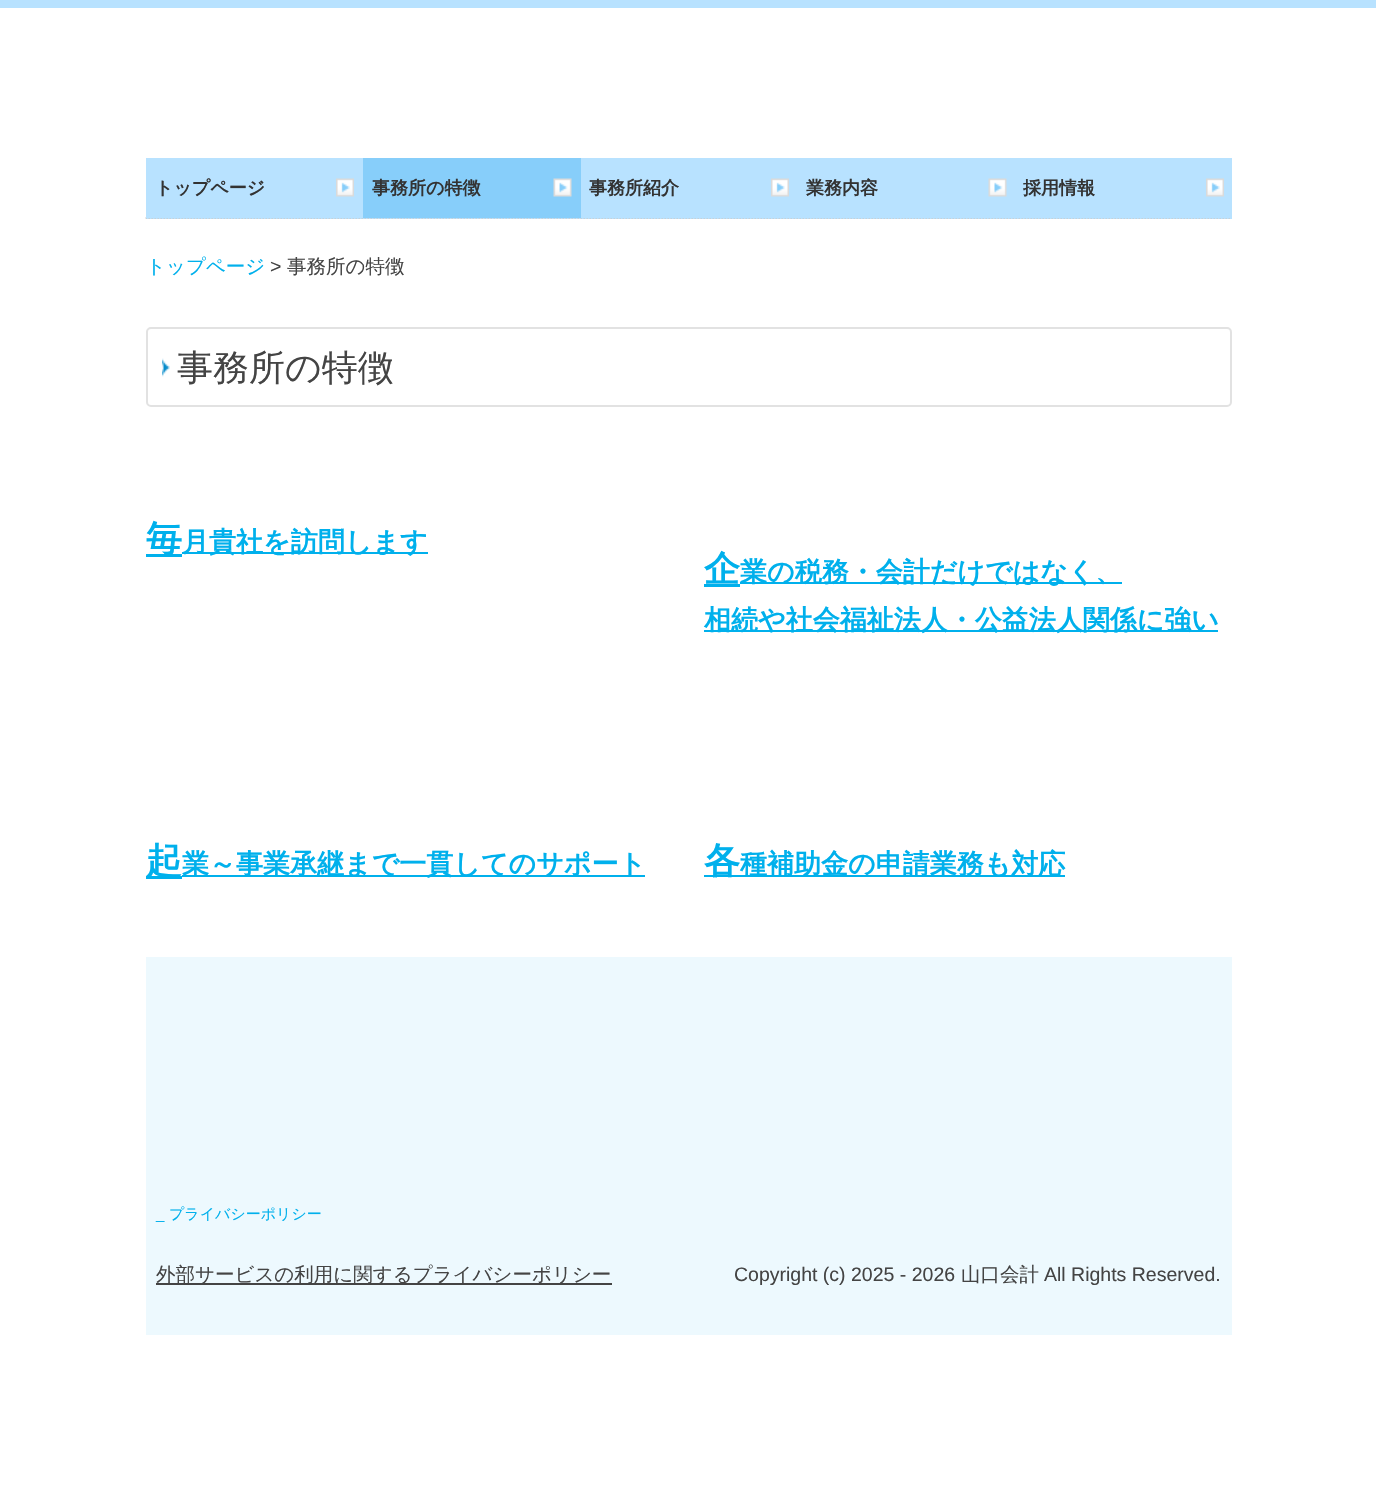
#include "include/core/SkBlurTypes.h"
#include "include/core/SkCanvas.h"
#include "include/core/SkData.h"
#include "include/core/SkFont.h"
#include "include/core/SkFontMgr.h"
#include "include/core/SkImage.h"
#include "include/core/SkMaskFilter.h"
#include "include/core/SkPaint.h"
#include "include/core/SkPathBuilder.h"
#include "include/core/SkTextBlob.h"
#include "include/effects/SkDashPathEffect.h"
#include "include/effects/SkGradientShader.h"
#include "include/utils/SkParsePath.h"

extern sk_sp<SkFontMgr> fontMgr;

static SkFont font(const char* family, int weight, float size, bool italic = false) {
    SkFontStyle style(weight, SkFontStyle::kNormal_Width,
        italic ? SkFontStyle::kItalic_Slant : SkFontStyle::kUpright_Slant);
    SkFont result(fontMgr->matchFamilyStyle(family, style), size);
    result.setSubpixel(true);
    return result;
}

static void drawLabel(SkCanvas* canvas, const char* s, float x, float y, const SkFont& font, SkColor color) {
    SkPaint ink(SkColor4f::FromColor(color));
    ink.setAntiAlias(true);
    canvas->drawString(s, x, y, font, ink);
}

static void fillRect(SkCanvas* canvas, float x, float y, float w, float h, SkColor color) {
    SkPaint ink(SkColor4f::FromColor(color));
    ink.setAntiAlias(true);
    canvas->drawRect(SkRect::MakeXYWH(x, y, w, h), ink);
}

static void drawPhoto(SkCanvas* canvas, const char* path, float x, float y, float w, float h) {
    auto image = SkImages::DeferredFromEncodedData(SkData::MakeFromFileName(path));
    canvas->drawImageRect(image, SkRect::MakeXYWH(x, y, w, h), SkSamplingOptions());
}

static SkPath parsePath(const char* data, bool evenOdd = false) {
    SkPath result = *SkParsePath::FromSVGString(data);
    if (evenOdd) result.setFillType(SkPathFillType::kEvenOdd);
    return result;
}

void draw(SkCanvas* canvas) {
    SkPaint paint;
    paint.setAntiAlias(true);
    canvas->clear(0xFFFFFFFF);
    fillRect(canvas, 0, 0, 1376, 8, 0xFFB8E2FF);
    fillRect(canvas, 146, 218, 1086, 1, 0xFFB8E2FF);
    paint.setStroke(true);
    paint.setStrokeWidth(1.5f);
    paint.setColor(0xFFCCCCCC);
    paint.setPathEffect(SkDashPathEffect::Make({{1.5f, 1.5f}}, 0));
    canvas->drawPath(parsePath("M145.5 218H1231.5"), paint);
    paint.setPathEffect(nullptr);
    fillRect(canvas, 146, 158, 217, 60, 0xFFB8E2FF);
    drawPhoto(canvas, "assets/img1.png", 336, 178, 18, 19);
    SkFont font1 = font("WenQuanYi Zen Hei", 700, 18);
    drawLabel(canvas, "トップページ", 155, 194, font1, 0xFF333333);
    fillRect(canvas, 363, 158, 218, 60, 0xFF87CEFA);
    drawPhoto(canvas, "assets/img2.png", 553, 178, 19, 19);
    drawLabel(canvas, "事務所の特徴", 372, 194, font1, 0xFF333333);
    fillRect(canvas, 581, 158, 651, 60, 0xFFB8E2FF);
    drawPhoto(canvas, "assets/img3.png", 771, 178, 18, 19);
    drawLabel(canvas, "事務所紹介", 589, 194, font1, 0xFF333333);
    drawPhoto(canvas, "assets/img4.png", 988, 178, 19, 19);
    drawLabel(canvas, "業務内容", 806, 194, font1, 0xFF333333);
    drawPhoto(canvas, "assets/img1.png", 1206, 178, 18, 19);
    drawLabel(canvas, "採用情報", 1023, 194, font1, 0xFF333333);
    SkFont font2 = font("WenQuanYi Zen Hei", 500, 19.5f);
    drawLabel(canvas, "トップページ", 146, 273, font2, 0xFF00B0EC);
    SkFont font3 = font("Liberation Sans", 400, 19.5f);
    drawLabel(canvas, ">", 270, 273, font3, 0xFF444444);
    drawLabel(canvas, "事務所の特徴", 287, 273, font2, 0xFF444444);
    drawPhoto(canvas, "assets/img5.png", 162, 358, 8, 19);
    paint.setStrokeWidth(2);
    paint.setColor(0xFFE2E2E2);
    canvas->drawRoundRect(SkRect::MakeXYWH(147, 328, 1084, 78), 4, 4, paint);
    SkFont font4 = font("WenQuanYi Zen Hei", 500, 36);
    drawLabel(canvas, "事務所の特徴", 177, 380, font4, 0xFF444444);
    fillRect(canvas, 146, 554, 36, 3, 0xFF00B0EC);
    SkFont font5 = font("WenQuanYi Zen Hei", 700, 36);
    drawLabel(canvas, "毎", 146, 551, font5, 0xFF00B0EC);
    fillRect(canvas, 182, 552, 246, 2, 0xFF00B0EC);
    SkFont font6 = font("WenQuanYi Zen Hei", 700, 27);
    drawLabel(canvas, "月貴社を訪問します", 182, 551, font6, 0xFF00B0EC);
    drawLabel(canvas, "企", 704, 581, font5, 0xFF00B0EC);
    fillRect(canvas, 704, 584, 36, 3, 0xFF00B0EC);
    fillRect(canvas, 740, 582, 382, 2, 0xFF00B0EC);
    drawLabel(canvas, "業の税務・会計だけではなく、", 740, 581, font6, 0xFF00B0EC);
    fillRect(canvas, 704, 630, 514, 2, 0xFF00B0EC);
    drawLabel(canvas, "相続や社会福祉法人・公益法人関係に強い", 704, 629, font6, 0xFF00B0EC);
    fillRect(canvas, 146, 876, 36, 3, 0xFF00B0EC);
    drawLabel(canvas, "起", 146, 873, font5, 0xFF00B0EC);
    fillRect(canvas, 182, 875, 463, 2, 0xFF00B0EC);
    drawLabel(canvas, "業～事業承継まで一貫してのサポート", 182, 873, font6, 0xFF00B0EC);
    fillRect(canvas, 704, 875, 361, 2, 0xFF00B0EC);
    drawLabel(canvas, "各", 704, 873, font5, 0xFF00B0EC);
    drawLabel(canvas, "種補助金の申請業務も対応", 740, 873, font6, 0xFF00B0EC);
    fillRect(canvas, 146, 957, 1086, 378, 0xFFEDF9FE);
    SkFont font7 = font("Liberation Sans", 400, 15);
    drawLabel(canvas, "_", 156, 1219, font7, 0xFF00B0EC);
    SkFont font8 = font("WenQuanYi Zen Hei", 500, 15);
    drawLabel(canvas, "プライバシーポリシー", 169, 1219, font8, 0xFF00B0EC);
    fillRect(canvas, 156, 1283, 456, 2, 0xFF444444);
    drawLabel(canvas, "外部サービスの利用に関するプライバシーポリシー", 156, 1281, font2, 0xFF444444);
    drawLabel(canvas, "Copyright (c) 2025 - 2026", 734, 1281, font3, 0xFF444444);
    drawLabel(canvas, "山口会計", 961, 1281, font2, 0xFF444444);
    drawLabel(canvas, "All Rights Reserved.", 1044, 1281, font3, 0xFF444444);
}
